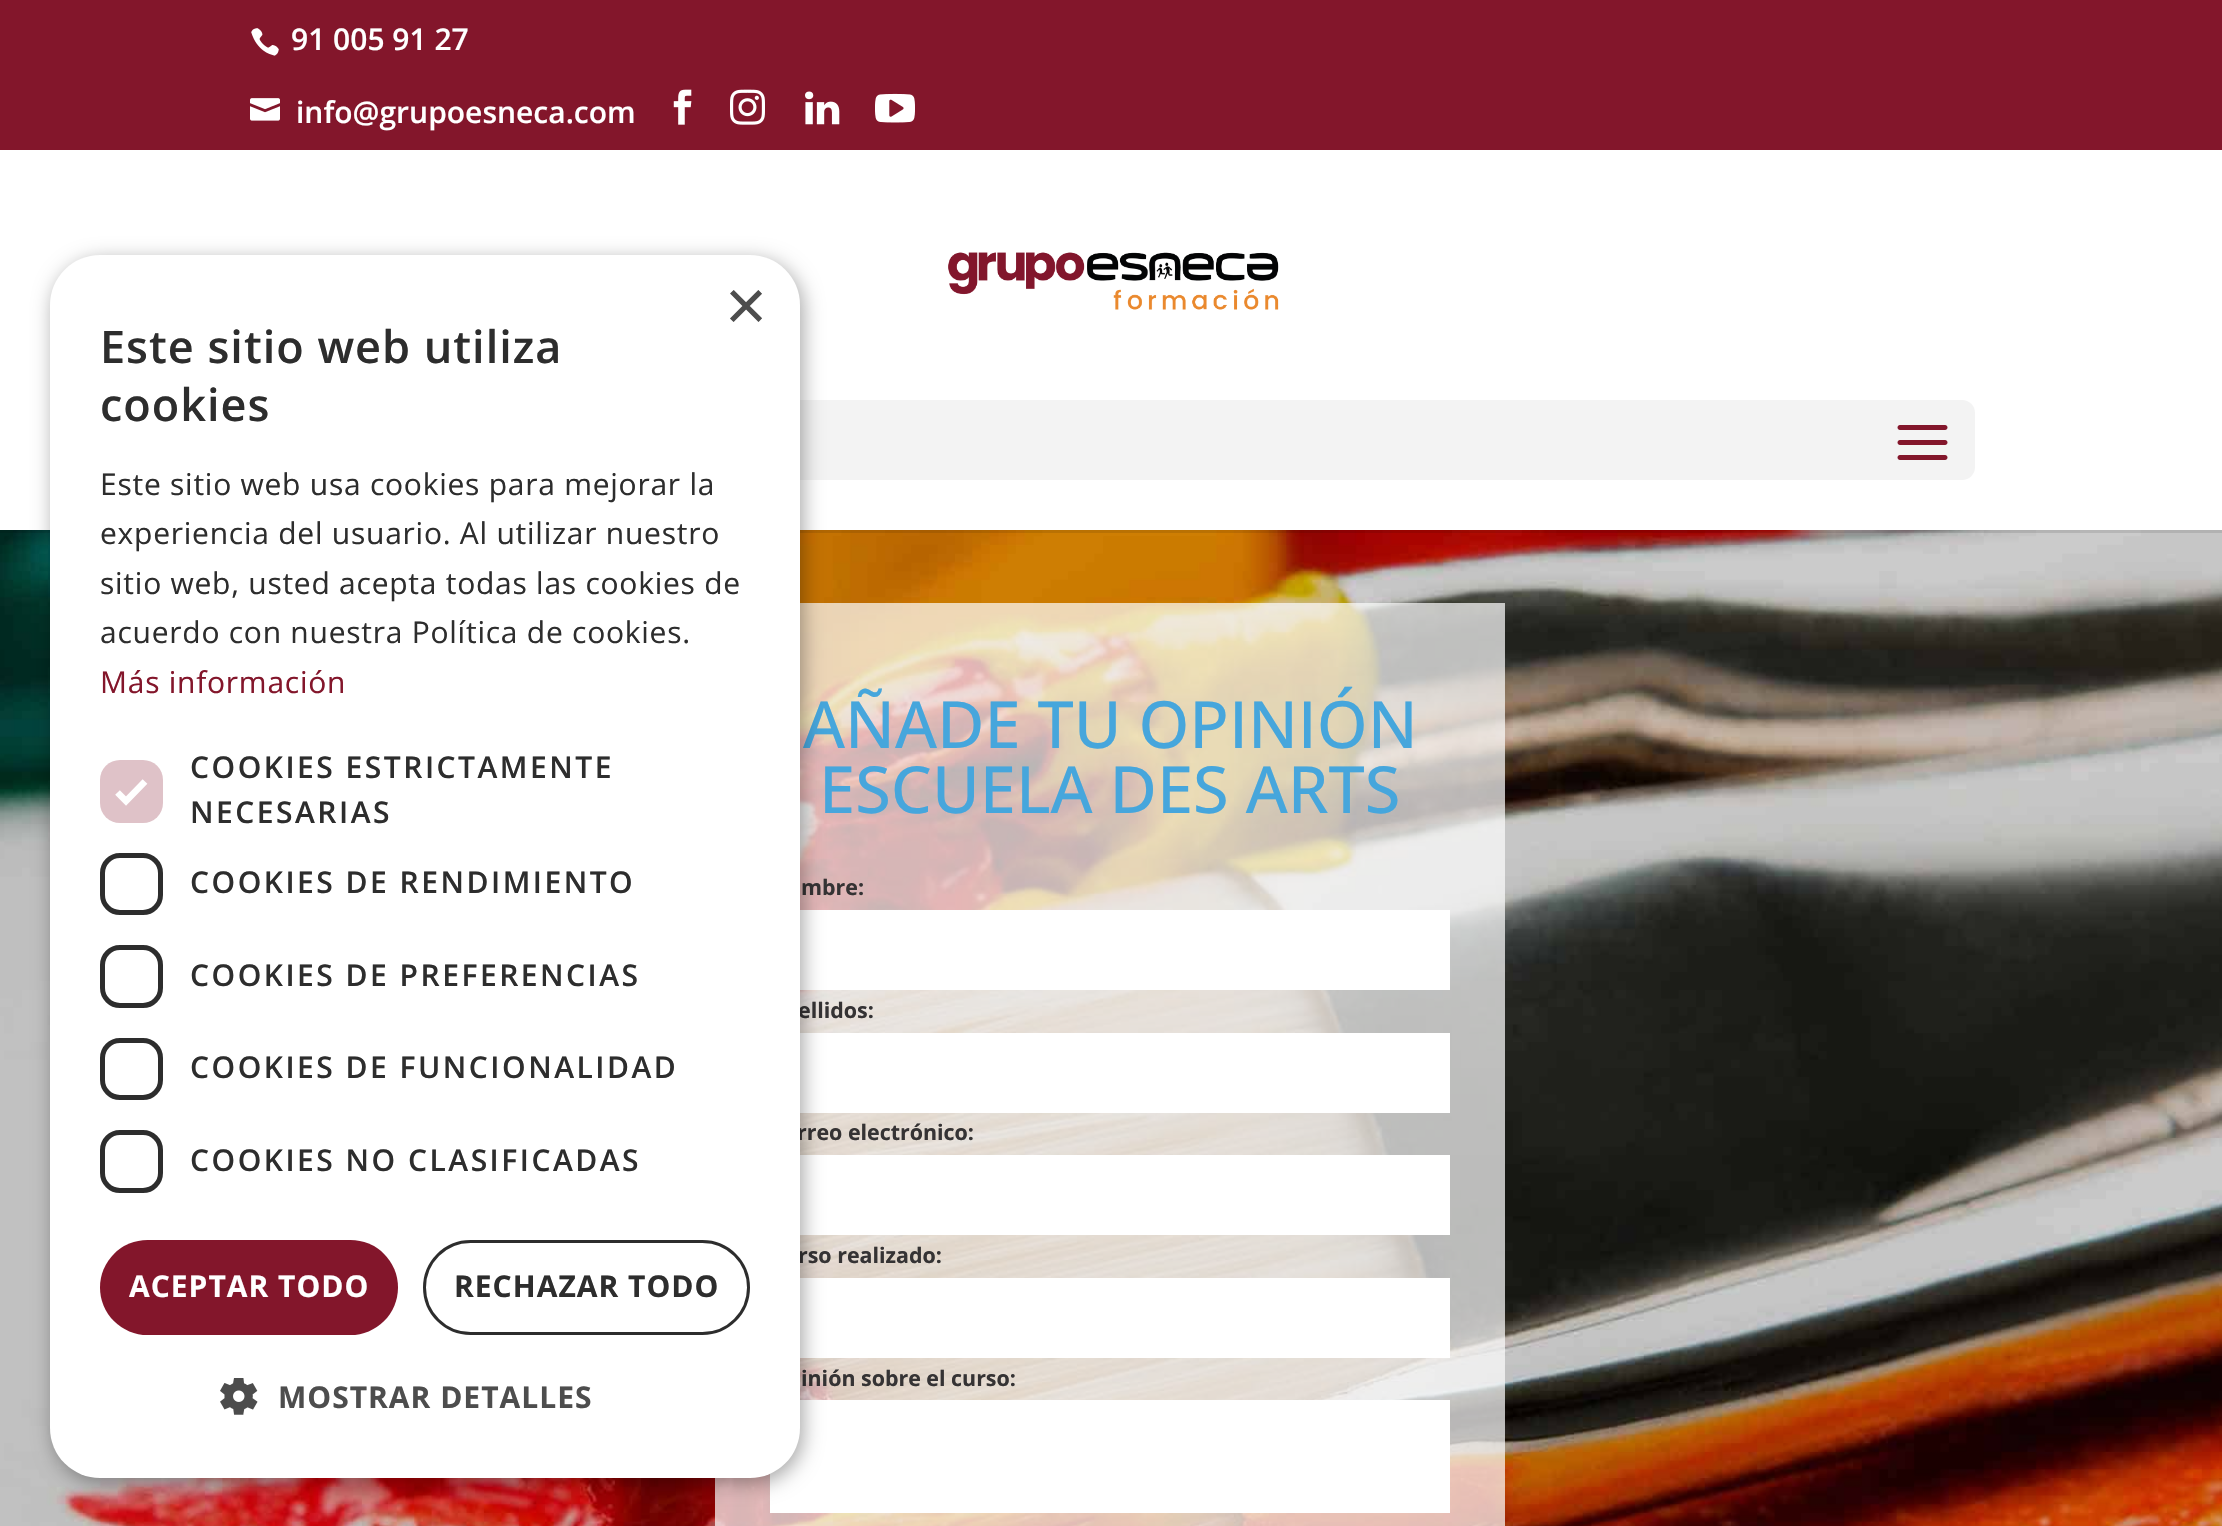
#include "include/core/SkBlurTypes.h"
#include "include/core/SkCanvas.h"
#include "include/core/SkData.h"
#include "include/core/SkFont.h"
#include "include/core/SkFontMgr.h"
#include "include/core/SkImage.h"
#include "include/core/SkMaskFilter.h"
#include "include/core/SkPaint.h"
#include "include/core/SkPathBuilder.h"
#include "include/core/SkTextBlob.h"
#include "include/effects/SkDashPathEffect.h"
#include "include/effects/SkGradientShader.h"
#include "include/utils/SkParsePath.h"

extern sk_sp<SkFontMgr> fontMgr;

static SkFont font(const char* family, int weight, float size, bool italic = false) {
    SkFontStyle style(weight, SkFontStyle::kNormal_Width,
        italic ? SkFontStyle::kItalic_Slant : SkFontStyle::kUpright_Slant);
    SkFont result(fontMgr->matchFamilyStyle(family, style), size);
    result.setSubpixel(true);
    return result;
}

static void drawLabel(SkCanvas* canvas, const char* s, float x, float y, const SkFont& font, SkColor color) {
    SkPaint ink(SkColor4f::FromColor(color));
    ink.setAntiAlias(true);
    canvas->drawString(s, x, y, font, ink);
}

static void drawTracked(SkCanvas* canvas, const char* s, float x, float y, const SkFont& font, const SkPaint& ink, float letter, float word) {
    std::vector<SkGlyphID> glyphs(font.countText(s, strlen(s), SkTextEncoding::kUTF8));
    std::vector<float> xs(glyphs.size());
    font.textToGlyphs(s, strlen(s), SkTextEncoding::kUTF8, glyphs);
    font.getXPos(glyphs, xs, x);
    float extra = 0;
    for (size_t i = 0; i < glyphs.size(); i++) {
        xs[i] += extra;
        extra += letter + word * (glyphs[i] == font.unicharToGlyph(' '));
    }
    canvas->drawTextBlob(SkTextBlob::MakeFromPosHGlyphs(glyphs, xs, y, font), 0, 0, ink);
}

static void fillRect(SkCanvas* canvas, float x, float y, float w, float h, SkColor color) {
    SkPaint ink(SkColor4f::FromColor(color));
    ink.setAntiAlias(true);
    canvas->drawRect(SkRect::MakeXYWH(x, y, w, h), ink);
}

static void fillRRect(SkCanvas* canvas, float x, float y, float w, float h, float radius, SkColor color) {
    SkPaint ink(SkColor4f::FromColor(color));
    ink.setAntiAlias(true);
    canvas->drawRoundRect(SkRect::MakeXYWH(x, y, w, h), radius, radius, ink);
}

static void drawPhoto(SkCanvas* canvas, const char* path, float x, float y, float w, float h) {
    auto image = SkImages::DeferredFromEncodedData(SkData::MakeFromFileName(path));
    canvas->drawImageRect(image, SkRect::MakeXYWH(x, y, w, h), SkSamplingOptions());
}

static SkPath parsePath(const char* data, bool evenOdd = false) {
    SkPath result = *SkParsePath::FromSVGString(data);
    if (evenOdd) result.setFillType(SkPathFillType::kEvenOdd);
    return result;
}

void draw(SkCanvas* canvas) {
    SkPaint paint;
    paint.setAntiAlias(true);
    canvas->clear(0xFFFFFFFF);
    fillRect(canvas, 0, 0, 2222, 150, 0xFF83162B);
    drawPhoto(canvas, "assets/img1.png", 251, 28, 28, 28);
    SkFont font1 = font("Open Sans", 600, 30);
    drawLabel(canvas, "91 005 91 27", 291, 50, font1, 0xFFFFFFFF);
    drawPhoto(canvas, "assets/img2.png", 250, 98, 30, 23);
    drawLabel(canvas, "info@grupoesneca.com", 296, 123, font1, 0xFFFFFFFF);
    drawPhoto(canvas, "assets/img3.png", 673, 89, 19, 36);
    drawPhoto(canvas, "assets/img4.png", 730, 89, 35, 36);
    drawPhoto(canvas, "assets/img5.png", 805, 91, 35, 34);
    drawPhoto(canvas, "assets/img6.png", 875, 93, 40, 30);
    drawPhoto(canvas, "assets/img9.png", 0, 530, 2222, 996);
    paint.setColor(0x1A000000);
    canvas->drawPath(parsePath("M0 530V533H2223V153H2222V530Z"), paint);
    drawPhoto(canvas, "assets/img7.png", 948, 252, 331, 58);
    fillRRect(canvas, 250, 400, 1725, 80, 13, 0xFFF3F3F3);
    drawPhoto(canvas, "assets/img8.png", 1897, 425, 51, 35);
    fillRect(canvas, 715, 603, 790, 923, 0xB8FBFBFB);
    SkFont font2 = font("Open Sans", 500, 65);
    drawLabel(canvas, "AÑADE TU OPINIÓN", 803, 748, font2, 0xFF46A6DC);
    drawLabel(canvas, "ESCUELA DES ARTS", 819, 813, font2, 0xFF46A6DC);
    SkFont font3 = font("Open Sans", 700, 21.4f);
    drawLabel(canvas, "mbre:", 801, 895, font3, 0xFF353334);
    fillRect(canvas, 800, 910, 650, 80, 0xFFFFFFFF);
    drawLabel(canvas, "ellidos:", 798, 1018, font3, 0xFF353334);
    fillRect(canvas, 800, 1033, 650, 80, 0xFFFFFFFF);
    drawLabel(canvas, "rreo electrónico:", 797, 1140, font3, 0xFF353334);
    fillRect(canvas, 800, 1155, 650, 80, 0xFFFFFFFF);
    drawLabel(canvas, "rso realizado:", 798, 1263, font3, 0xFF353334);
    fillRect(canvas, 800, 1278, 650, 80, 0xFFFFFFFF);
    drawLabel(canvas, "inión sobre el curso:", 801, 1386, font3, 0xFF353334);
    fillRect(canvas, 770, 1400, 680, 113, 0xFFFFFFFF);
    paint.setColor(0x59000000);
    paint.setMaskFilter(SkMaskFilter::MakeBlur(kNormal_SkBlurStyle, 10));
    canvas->drawRoundRect(SkRect::MakeXYWH(53, 260, 750, 1223), 50, 50, paint);
    paint.setMaskFilter(nullptr);
    fillRRect(canvas, 50, 255, 750, 1223, 50, 0xFFFFFFFF);
    SkFont font4 = font("Liberation Sans", 400, 72);
    drawLabel(canvas, "×", 725, 330, font4, 0xFF4D4D4D);
    SkFont font5 = font("Open Sans", 600, 45);
    paint.setColor(0xFF2D2D2D);
    drawTracked(canvas, "Este sitio web utiliza", 100, 363, font5, paint, 1, 0);
    drawTracked(canvas, "cookies", 100, 421, font5, paint, 1, 0);
    SkFont font6 = font("Open Sans", 400, 30);
    drawTracked(canvas, "Este sitio web usa cookies para mejorar la", 100, 495, font6, paint, 0.75f, 0);
    drawTracked(canvas, "experiencia del usuario. Al utilizar nuestro", 100, 544, font6, paint, 0.75f, 0);
    drawTracked(canvas, "sitio web, usted acepta todas las cookies de", 100, 594, font6, paint, 0.75f, 0);
    drawTracked(canvas, "acuerdo con nuestra Política de cookies.", 100, 643, font6, paint, 0.75f, 0);
    paint.setColor(0xFF83162B);
    drawTracked(canvas, "Más información", 100, 693, font6, paint, 0.75f, 0);
    fillRRect(canvas, 100, 760, 63, 63, 20, 0xFFDFC2C8);
    paint.setStroke(true);
    paint.setStrokeWidth(6.6f);
    paint.setColor(0xFFFFFFFF);
    canvas->drawPath(parsePath("M117.5 792.5L126 801L145 781.5"), paint);
    paint.setStroke(false);
    paint.setColor(0xFF2D2D2D);
    drawTracked(canvas, "COOKIES ESTRICTAMENTE", 190, 778, font1, paint, 2.5f, 0);
    drawTracked(canvas, "NECESARIAS", 190, 823, font1, paint, 2.5f, 0);
    paint.setStroke(true);
    paint.setStrokeWidth(5);
    canvas->drawRoundRect(SkRect::MakeXYWH(102.5f, 855.5f, 58, 57), 17.5f, 17.5f, paint);
    paint.setStroke(false);
    drawTracked(canvas, "COOKIES DE RENDIMIENTO", 190, 893, font1, paint, 2.5f, 0);
    paint.setStroke(true);
    canvas->drawRoundRect(SkRect::MakeXYWH(102.5f, 947.5f, 58, 58), 17.5f, 17.5f, paint);
    paint.setStroke(false);
    drawTracked(canvas, "COOKIES DE PREFERENCIAS", 190, 986, font1, paint, 2.5f, 0);
    paint.setStroke(true);
    canvas->drawRoundRect(SkRect::MakeXYWH(102.5f, 1040.5f, 58, 57), 17.5f, 17.5f, paint);
    paint.setStroke(false);
    drawTracked(canvas, "COOKIES DE FUNCIONALIDAD", 190, 1078, font1, paint, 2.5f, 0);
    paint.setStroke(true);
    canvas->drawRoundRect(SkRect::MakeXYWH(102.5f, 1132.5f, 58, 58), 17.5f, 17.5f, paint);
    paint.setStroke(false);
    drawTracked(canvas, "COOKIES NO CLASIFICADAS", 190, 1171, font1, paint, 2.5f, 0);
    fillRRect(canvas, 100, 1240, 298, 95, 47.5f, 0xFF83162B);
    SkFont font7 = font("Open Sans", 700, 30);
    paint.setColor(0xFFFFFFFF);
    drawTracked(canvas, "ACEPTAR TODO", 129, 1297, font7, paint, 1, 0);
    paint.setStroke(true);
    paint.setStrokeWidth(3);
    paint.setColor(0xFF2D2D2D);
    canvas->drawRoundRect(SkRect::MakeXYWH(424.5f, 1241.5f, 324, 92), 46, 46, paint);
    paint.setStroke(false);
    drawTracked(canvas, "RECHAZAR TODO", 454, 1297, font7, paint, 1, 0);
    drawPhoto(canvas, "assets/img10.png", 220, 1378, 38, 37);
    paint.setColor(0xFF4D4D4D);
    drawTracked(canvas, "MOSTRAR DETALLES", 278, 1408, font7, paint, 1, 0);
}
